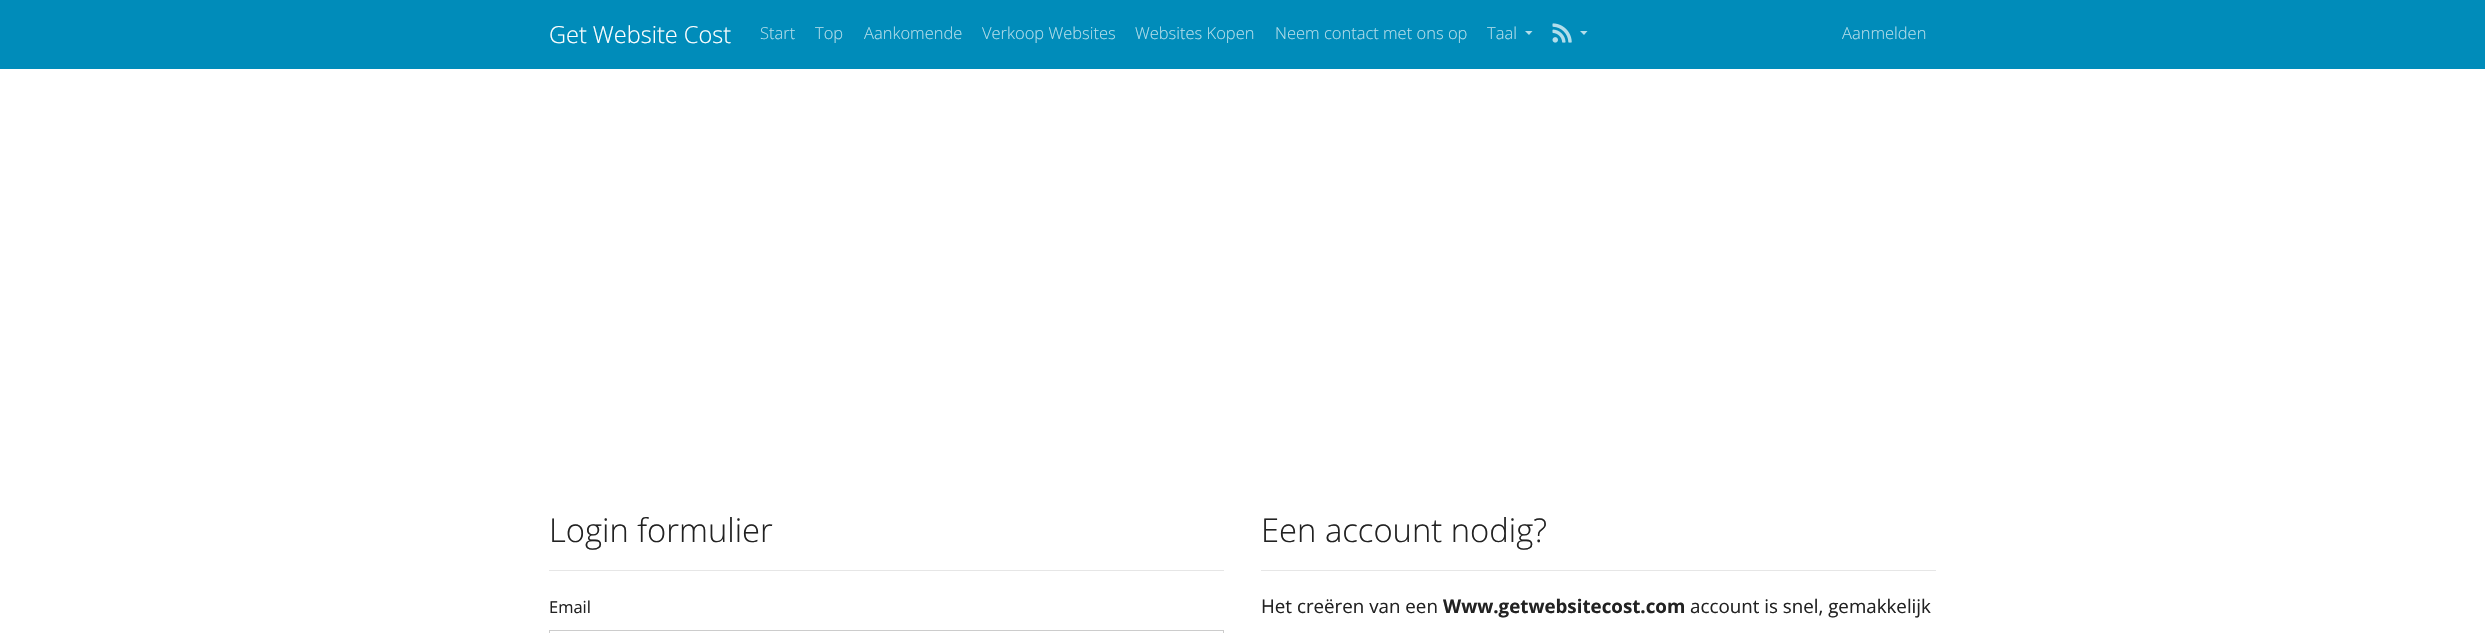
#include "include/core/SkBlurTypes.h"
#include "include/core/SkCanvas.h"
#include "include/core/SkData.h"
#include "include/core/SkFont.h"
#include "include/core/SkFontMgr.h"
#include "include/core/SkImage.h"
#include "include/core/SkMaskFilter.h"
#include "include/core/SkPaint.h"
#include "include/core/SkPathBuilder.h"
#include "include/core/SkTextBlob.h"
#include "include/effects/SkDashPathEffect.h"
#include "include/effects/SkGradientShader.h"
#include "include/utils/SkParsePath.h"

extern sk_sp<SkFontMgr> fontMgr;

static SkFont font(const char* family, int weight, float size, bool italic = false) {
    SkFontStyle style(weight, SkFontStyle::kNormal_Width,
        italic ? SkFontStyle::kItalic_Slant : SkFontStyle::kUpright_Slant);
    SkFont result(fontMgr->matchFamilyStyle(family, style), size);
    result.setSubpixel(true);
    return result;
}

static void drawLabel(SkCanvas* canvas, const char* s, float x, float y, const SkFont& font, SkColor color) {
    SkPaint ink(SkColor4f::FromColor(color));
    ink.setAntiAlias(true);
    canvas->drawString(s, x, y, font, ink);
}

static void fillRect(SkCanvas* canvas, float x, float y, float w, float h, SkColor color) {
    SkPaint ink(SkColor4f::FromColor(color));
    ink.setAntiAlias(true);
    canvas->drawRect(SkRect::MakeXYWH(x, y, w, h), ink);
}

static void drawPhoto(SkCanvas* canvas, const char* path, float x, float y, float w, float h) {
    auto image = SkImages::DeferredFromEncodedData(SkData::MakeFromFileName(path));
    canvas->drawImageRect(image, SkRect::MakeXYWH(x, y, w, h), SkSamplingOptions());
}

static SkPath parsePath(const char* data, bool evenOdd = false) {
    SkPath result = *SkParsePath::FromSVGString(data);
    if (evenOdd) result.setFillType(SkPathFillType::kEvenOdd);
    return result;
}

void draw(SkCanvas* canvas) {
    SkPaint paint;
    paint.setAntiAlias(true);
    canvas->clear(0xFFFFFFFF);
    fillRect(canvas, 0, 0, 2485, 69, 0xFF008CBA);
    SkFont font1 = font("Open Sans", 300, 23.5f);
    drawLabel(canvas, "Get Website Cost", 549, 43, font1, 0xFFFFFFFF);
    SkFont font2 = font("Open Sans", 300, 16.5f);
    drawLabel(canvas, "Start", 760, 39, font2, 0xFFB3DDEA);
    drawLabel(canvas, "Top", 815, 39, font2, 0xFFB3DDEA);
    drawLabel(canvas, "Aankomende", 864, 39, font2, 0xFFB3DDEA);
    drawLabel(canvas, "Verkoop Websites", 982, 39, font2, 0xFFB3DDEA);
    drawLabel(canvas, "Websites Kopen", 1135, 39, font2, 0xFFB3DDEA);
    drawLabel(canvas, "Neem contact met ons op", 1275, 39, font2, 0xFFB3DDEA);
    drawLabel(canvas, "Taal", 1487, 39, font2, 0xFFB3DDEA);
    paint.setColor(0xFFB3DDEA);
    canvas->drawPath(parsePath("M1525 31H1532.5L1529 35Z"), paint);
    drawPhoto(canvas, "assets/img1.png", 1552, 23, 20, 20);
    canvas->drawPath(parsePath("M1580 31H1587.5L1584 35Z"), paint);
    drawLabel(canvas, "Aanmelden", 1842, 39, font2, 0xFFB3DDEA);
    SkFont font3 = font("Open Sans", 300, 32.75f);
    drawLabel(canvas, "Login formulier", 549, 542, font3, 0xFF222222);
    fillRect(canvas, 549, 570, 675, 1, 0xFFE6E6E6);
    SkFont font4 = font("Open Sans", 400, 16.5f);
    drawLabel(canvas, "Email", 549, 613, font4, 0xFF222222);
    paint.setStroke(true);
    paint.setStrokeWidth(1);
    paint.setColor(0xFFCCCCCC);
    canvas->drawRect(SkRect::MakeXYWH(549.5f, 630.5f, 674, 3), paint);
    drawLabel(canvas, "Een account nodig?", 1261, 542, font3, 0xFF222222);
    fillRect(canvas, 1261, 570, 675, 1, 0xFFE6E6E6);
    SkFont font5 = font("Open Sans", 400, 18.75f);
    drawLabel(canvas, "Het creëren van een", 1261, 613, font5, 0xFF222222);
    SkFont font6 = font("Open Sans", 700, 18.75f);
    drawLabel(canvas, "Www.getwebsitecost.com", 1443, 613, font6, 0xFF222222);
    drawLabel(canvas, "account is snel, gemakkelijk", 1690, 613, font5, 0xFF222222);
}
